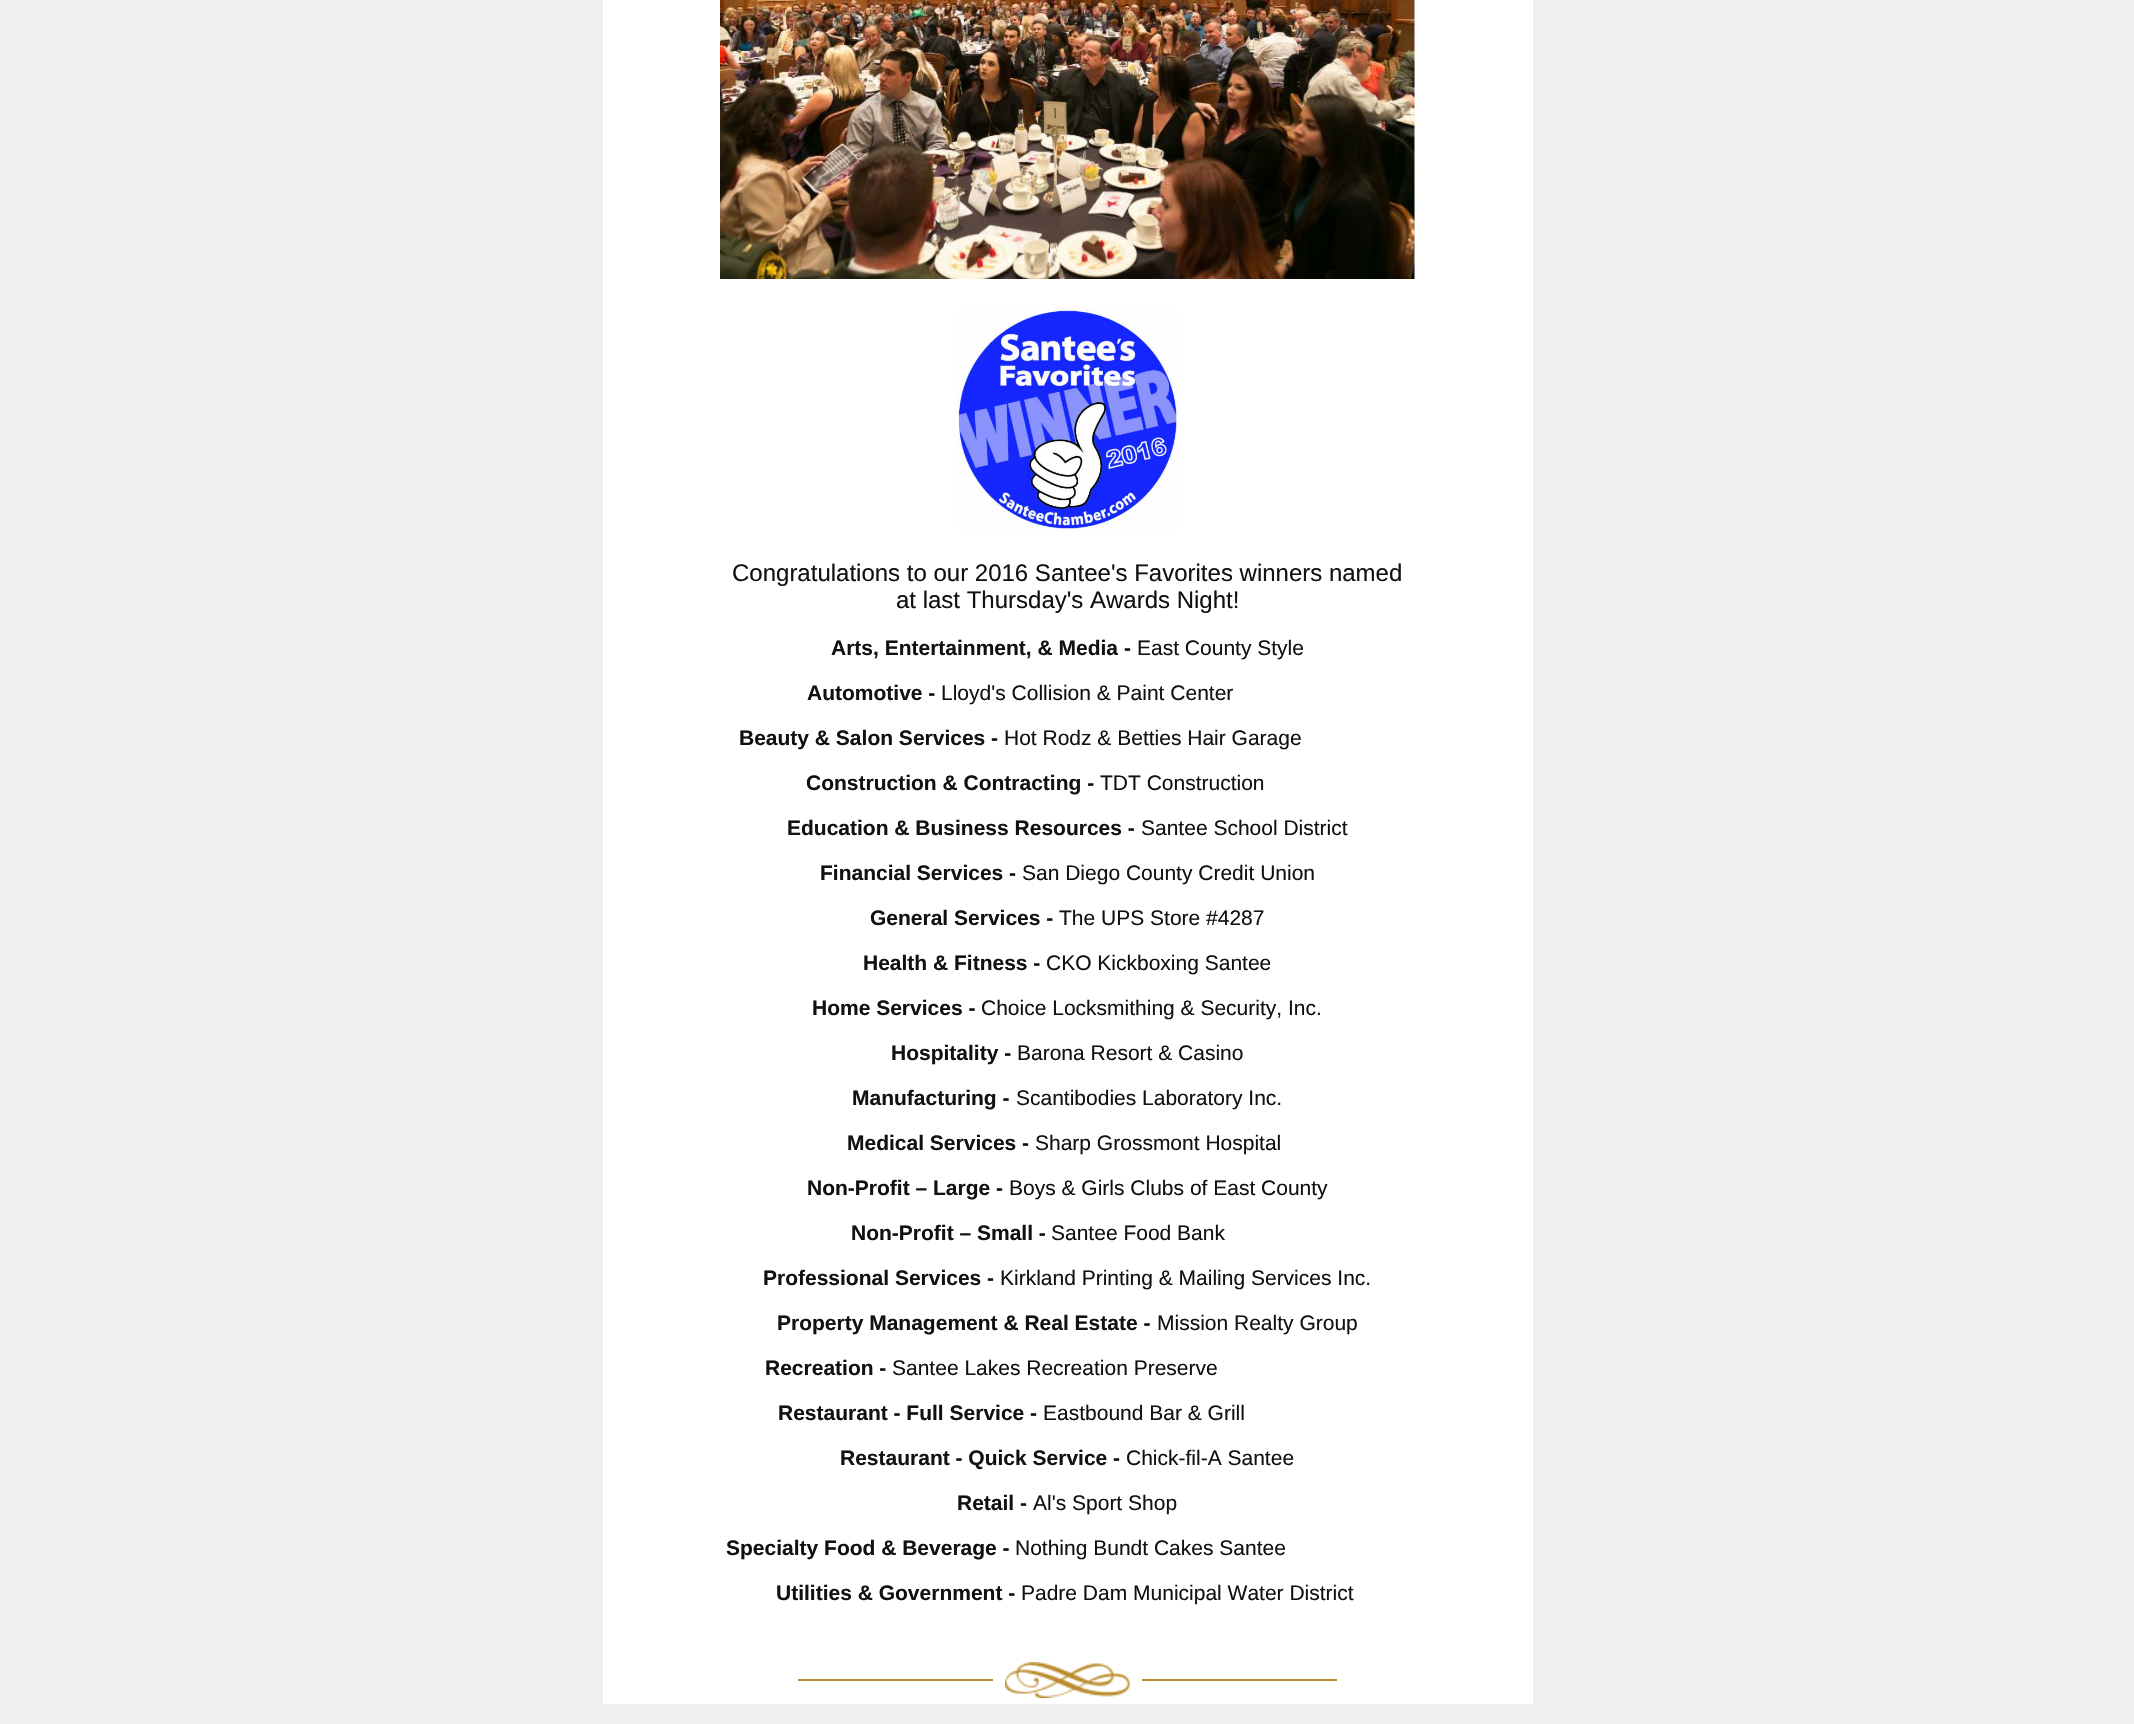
#include "include/core/SkBlurTypes.h"
#include "include/core/SkCanvas.h"
#include "include/core/SkData.h"
#include "include/core/SkFont.h"
#include "include/core/SkFontMgr.h"
#include "include/core/SkImage.h"
#include "include/core/SkMaskFilter.h"
#include "include/core/SkPaint.h"
#include "include/core/SkPathBuilder.h"
#include "include/core/SkTextBlob.h"
#include "include/effects/SkDashPathEffect.h"
#include "include/effects/SkGradientShader.h"
#include "include/utils/SkParsePath.h"

extern sk_sp<SkFontMgr> fontMgr;

static SkFont font(const char* family, int weight, float size, bool italic = false) {
    SkFontStyle style(weight, SkFontStyle::kNormal_Width,
        italic ? SkFontStyle::kItalic_Slant : SkFontStyle::kUpright_Slant);
    SkFont result(fontMgr->matchFamilyStyle(family, style), size);
    result.setSubpixel(true);
    return result;
}

static void drawLabel(SkCanvas* canvas, const char* s, float x, float y, const SkFont& font, SkColor color) {
    SkPaint ink(SkColor4f::FromColor(color));
    ink.setAntiAlias(true);
    canvas->drawString(s, x, y, font, ink);
}

static void fillRect(SkCanvas* canvas, float x, float y, float w, float h, SkColor color) {
    SkPaint ink(SkColor4f::FromColor(color));
    ink.setAntiAlias(true);
    canvas->drawRect(SkRect::MakeXYWH(x, y, w, h), ink);
}

static void drawPhoto(SkCanvas* canvas, const char* path, float x, float y, float w, float h) {
    auto image = SkImages::DeferredFromEncodedData(SkData::MakeFromFileName(path));
    canvas->drawImageRect(image, SkRect::MakeXYWH(x, y, w, h), SkSamplingOptions());
}

void draw(SkCanvas* canvas) {
    SkPaint paint;
    paint.setAntiAlias(true);
    canvas->clear(0xFFEEEFF0);
    fillRect(canvas, 603, 0, 930, 1704, 0xFFFFFFFF);
    drawPhoto(canvas, "assets/img1.png", 720, 0, 695, 279);
    drawPhoto(canvas, "assets/img2.png", 957, 309, 221, 221);
    SkFont font1 = font("Liberation Sans", 400, 24);
    drawLabel(canvas, "Congratulations to our 2016 Santee's Favorites winners named", 732, 581, font1, 0xFF111111);
    drawLabel(canvas, "at last Thursday's Awards Night!", 896, 608, font1, 0xFF111111);
    SkFont font2 = font("Liberation Sans", 700, 21);
    drawLabel(canvas, "Arts, Entertainment, & Media -", 831, 655, font2, 0xFF111111);
    SkFont font3 = font("Liberation Sans", 400, 21);
    drawLabel(canvas, "East County Style", 1137, 655, font3, 0xFF111111);
    drawLabel(canvas, "Automotive -", 807, 700, font2, 0xFF111111);
    drawLabel(canvas, "Lloyd's Collision & Paint Center", 941, 700, font3, 0xFF111111);
    drawLabel(canvas, "Beauty & Salon Services -", 739, 745, font2, 0xFF111111);
    drawLabel(canvas, "Hot Rodz & Betties Hair Garage", 1004, 745, font3, 0xFF111111);
    drawLabel(canvas, "Construction & Contracting -", 806, 790, font2, 0xFF111111);
    drawLabel(canvas, "TDT Construction", 1100, 790, font3, 0xFF111111);
    drawLabel(canvas, "Education & Business Resources -", 787, 835, font2, 0xFF111111);
    drawLabel(canvas, "Santee School District", 1141, 835, font3, 0xFF111111);
    drawLabel(canvas, "Financial Services -", 820, 880, font2, 0xFF111111);
    drawLabel(canvas, "San Diego County Credit Union", 1022, 880, font3, 0xFF111111);
    drawLabel(canvas, "General Services -", 870, 925, font2, 0xFF111111);
    drawLabel(canvas, "The UPS Store #4287", 1059, 925, font3, 0xFF111111);
    drawLabel(canvas, "Health & Fitness -", 863, 970, font2, 0xFF111111);
    drawLabel(canvas, "CKO Kickboxing Santee", 1046, 970, font3, 0xFF111111);
    drawLabel(canvas, "Home Services -", 812, 1015, font2, 0xFF111111);
    drawLabel(canvas, "Choice Locksmithing & Security, Inc.", 981, 1015, font3, 0xFF111111);
    drawLabel(canvas, "Hospitality -", 891, 1060, font2, 0xFF111111);
    drawLabel(canvas, "Barona Resort & Casino", 1017, 1060, font3, 0xFF111111);
    drawLabel(canvas, "Manufacturing -", 852, 1105, font2, 0xFF111111);
    drawLabel(canvas, "Scantibodies Laboratory Inc.", 1016, 1105, font3, 0xFF111111);
    drawLabel(canvas, "Medical Services -", 847, 1150, font2, 0xFF111111);
    drawLabel(canvas, "Sharp Grossmont Hospital", 1035, 1150, font3, 0xFF111111);
    drawLabel(canvas, "Non-Profit – Large -", 807, 1195, font2, 0xFF111111);
    drawLabel(canvas, "Boys & Girls Clubs of East County", 1009, 1195, font3, 0xFF111111);
    drawLabel(canvas, "Non-Profit – Small -", 851, 1240, font2, 0xFF111111);
    drawLabel(canvas, "Santee Food Bank", 1051, 1240, font3, 0xFF111111);
    drawLabel(canvas, "Professional Services -", 763, 1285, font2, 0xFF111111);
    drawLabel(canvas, "Kirkland Printing & Mailing Services Inc.", 1000, 1285, font3, 0xFF111111);
    drawLabel(canvas, "Property Management & Real Estate -", 777, 1330, font2, 0xFF111111);
    drawLabel(canvas, "Mission Realty Group", 1157, 1330, font3, 0xFF111111);
    drawLabel(canvas, "Recreation -", 765, 1375, font2, 0xFF111111);
    drawLabel(canvas, "Santee Lakes Recreation Preserve", 892, 1375, font3, 0xFF111111);
    drawLabel(canvas, "Restaurant - Full Service -", 778, 1420, font2, 0xFF111111);
    drawLabel(canvas, "Eastbound Bar & Grill", 1043, 1420, font3, 0xFF111111);
    drawLabel(canvas, "Restaurant - Quick Service -", 840, 1465, font2, 0xFF111111);
    drawLabel(canvas, "Chick-fil-A Santee", 1126, 1465, font3, 0xFF111111);
    drawLabel(canvas, "Retail -", 957, 1510, font2, 0xFF111111);
    drawLabel(canvas, "Al's Sport Shop", 1033, 1510, font3, 0xFF111111);
    drawLabel(canvas, "Specialty Food & Beverage -", 726, 1555, font2, 0xFF111111);
    drawLabel(canvas, "Nothing Bundt Cakes Santee", 1015, 1555, font3, 0xFF111111);
    drawLabel(canvas, "Utilities & Government -", 776, 1600, font2, 0xFF111111);
    drawLabel(canvas, "Padre Dam Municipal Water District", 1021, 1600, font3, 0xFF111111);
    fillRect(canvas, 798, 1679, 195, 2, 0xFFBB8C2D);
    drawPhoto(canvas, "assets/img3.png", 1005, 1662, 125, 36);
    fillRect(canvas, 1142, 1679, 195, 2, 0xFFBB8C2D);
}
